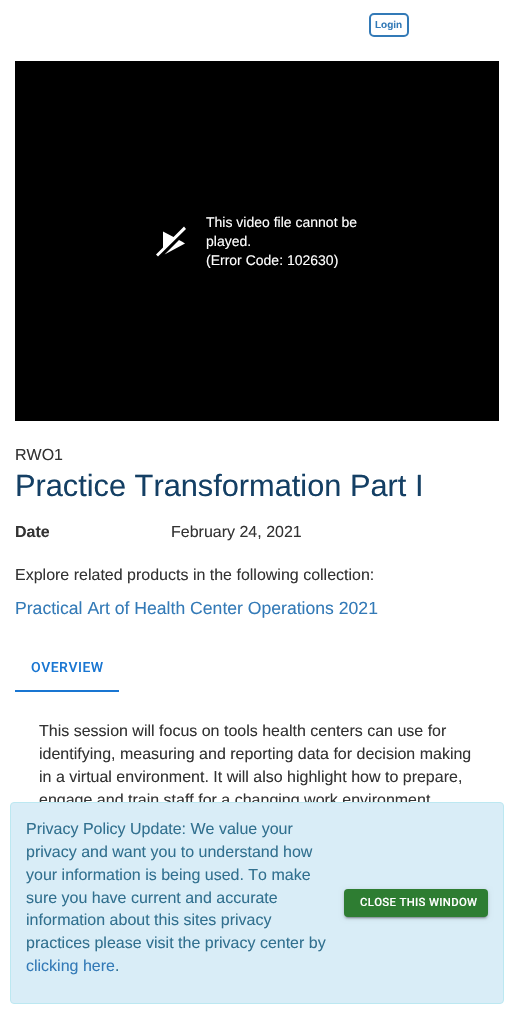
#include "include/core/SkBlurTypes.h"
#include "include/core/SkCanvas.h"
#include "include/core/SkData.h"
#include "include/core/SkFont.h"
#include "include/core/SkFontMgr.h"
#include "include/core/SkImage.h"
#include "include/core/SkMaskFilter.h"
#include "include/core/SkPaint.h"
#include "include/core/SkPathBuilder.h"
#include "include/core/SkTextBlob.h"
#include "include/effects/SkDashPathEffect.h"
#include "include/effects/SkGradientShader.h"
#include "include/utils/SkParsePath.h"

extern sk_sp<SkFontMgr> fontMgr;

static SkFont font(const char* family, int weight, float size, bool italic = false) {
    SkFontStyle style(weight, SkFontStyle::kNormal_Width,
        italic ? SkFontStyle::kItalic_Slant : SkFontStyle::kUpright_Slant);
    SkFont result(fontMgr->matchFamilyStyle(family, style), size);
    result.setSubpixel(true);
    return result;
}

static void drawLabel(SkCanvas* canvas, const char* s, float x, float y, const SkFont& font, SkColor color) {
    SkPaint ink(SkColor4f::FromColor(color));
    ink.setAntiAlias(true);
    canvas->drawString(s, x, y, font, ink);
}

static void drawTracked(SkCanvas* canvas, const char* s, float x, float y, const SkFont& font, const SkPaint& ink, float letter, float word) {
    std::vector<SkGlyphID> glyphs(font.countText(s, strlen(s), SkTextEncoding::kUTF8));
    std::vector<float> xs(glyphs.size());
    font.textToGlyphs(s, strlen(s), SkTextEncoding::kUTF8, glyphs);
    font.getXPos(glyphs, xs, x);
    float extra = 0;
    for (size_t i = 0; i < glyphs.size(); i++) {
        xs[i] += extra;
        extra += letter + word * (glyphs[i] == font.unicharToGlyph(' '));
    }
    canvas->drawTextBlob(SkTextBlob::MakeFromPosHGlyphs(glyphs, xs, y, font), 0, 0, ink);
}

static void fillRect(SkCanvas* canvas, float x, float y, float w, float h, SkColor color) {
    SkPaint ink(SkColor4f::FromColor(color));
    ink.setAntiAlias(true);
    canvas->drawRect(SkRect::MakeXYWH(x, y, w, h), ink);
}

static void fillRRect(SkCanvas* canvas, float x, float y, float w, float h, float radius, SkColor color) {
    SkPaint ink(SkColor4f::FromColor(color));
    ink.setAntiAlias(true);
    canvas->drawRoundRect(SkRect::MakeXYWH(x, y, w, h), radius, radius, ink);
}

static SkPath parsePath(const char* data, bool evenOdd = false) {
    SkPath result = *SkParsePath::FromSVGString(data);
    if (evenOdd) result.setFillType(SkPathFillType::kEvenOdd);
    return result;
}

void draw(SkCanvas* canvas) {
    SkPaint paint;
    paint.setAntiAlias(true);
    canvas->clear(0xFFFFFFFF);
    paint.setStroke(true);
    paint.setStrokeWidth(2);
    paint.setColor(0xFF337AB7);
    canvas->drawRoundRect(SkRect::MakeXYWH(370, 14, 38, 22), 4, 4, paint);
    SkFont font1 = font("Liberation Sans", 700, 10);
    drawLabel(canvas, "Login", 375, 28, font1, 0xFF337AB7);
    fillRect(canvas, 15, 61, 484, 360, 0xFF000000);
    paint.setStroke(false);
    paint.setColor(0xFFFFFFFF);
    canvas->drawPath(parsePath("M185 243.5L164.5 254.5L179 240C184.5 243 185.5 243.5 185 243.5ZM184 226.5L173.5 237L163 231.5V247.5L156 254.5L158 256.5L186 229Z"), paint);
    SkFont font2 = font("Liberation Sans", 400, 14);
    drawLabel(canvas, "This video file cannot be", 206, 227, font2, 0xFFFFFFFF);
    drawLabel(canvas, "played.", 206, 246, font2, 0xFFFFFFFF);
    drawLabel(canvas, "(Error Code: 102630)", 206, 265, font2, 0xFFFFFFFF);
    SkFont font3 = font("Liberation Sans", 400, 16);
    drawLabel(canvas, "RWO1", 15, 460, font3, 0xFF333333);
    SkFont font4 = font("Liberation Sans", 400, 30.75f);
    drawLabel(canvas, "Practice Transformation Part I", 15, 496, font4, 0xFF143F64);
    SkFont font5 = font("Liberation Sans", 700, 16);
    drawLabel(canvas, "Date", 15, 537, font5, 0xFF333333);
    drawLabel(canvas, "February 24, 2021", 171, 537, font3, 0xFF333333);
    drawLabel(canvas, "Explore related products in the following collection:", 15, 580, font3, 0xFF333333);
    SkFont font6 = font("Liberation Sans", 400, 17.6f);
    drawLabel(canvas, "Practical Art of Health Center Operations 2021", 15, 614, font6, 0xFF337AB7);
    SkFont font7 = font("Roboto", 500, 14);
    paint.setColor(0xFF1976D2);
    drawTracked(canvas, "OVERVIEW", 31, 672, font7, paint, 0.5f, 0);
    fillRect(canvas, 15, 690, 104, 2, 0xFF1976D2);
    drawLabel(canvas, "This session will focus on tools health centers can use for", 39, 736, font3, 0xFF333333);
    drawLabel(canvas, "identifying, measuring and reporting data for decision making", 39, 759, font3, 0xFF333333);
    drawLabel(canvas, "in a virtual environment. It will also highlight how to prepare,", 39, 782, font3, 0xFF333333);
    drawLabel(canvas, "engage and train staff for a changing work environment", 39, 805, font3, 0xFF333333);
    fillRect(canvas, 39, 802, 392, 7, 0xFFFFFFFF);
    paint.setColor(0xFFD9EDF7);
    canvas->drawRoundRect(SkRect::MakeXYWH(10.5f, 802.5f, 493, 201), 3.5f, 3.5f, paint);
    paint.setStroke(true);
    paint.setStrokeWidth(1);
    paint.setColor(0xFFBCE8F1);
    canvas->drawRoundRect(SkRect::MakeXYWH(10.5f, 802.5f, 493, 201), 3.5f, 3.5f, paint);
    drawLabel(canvas, "Privacy Policy Update: We value your", 26, 834, font3, 0xFF31708F);
    drawLabel(canvas, "privacy and want you to understand how", 26, 857, font3, 0xFF31708F);
    drawLabel(canvas, "your information is being used. To make", 26, 880, font3, 0xFF31708F);
    drawLabel(canvas, "sure you have current and accurate", 26, 903, font3, 0xFF31708F);
    drawLabel(canvas, "information about this sites privacy", 26, 925, font3, 0xFF31708F);
    drawLabel(canvas, "practices please visit the privacy center by", 26, 948, font3, 0xFF31708F);
    drawLabel(canvas, "clicking here", 26, 971, font3, 0xFF337AB7);
    drawLabel(canvas, ".", 115, 971, font3, 0xFF31708F);
    paint.setStroke(false);
    paint.setColor(0x1F000000);
    paint.setMaskFilter(SkMaskFilter::MakeBlur(kNormal_SkBlurStyle, 2.5f));
    canvas->drawRoundRect(SkRect::MakeXYWH(344, 890, 144, 28), 4, 4, paint);
    paint.setMaskFilter(nullptr);
    paint.setColor(0x24000000);
    paint.setMaskFilter(SkMaskFilter::MakeBlur(kNormal_SkBlurStyle, 1));
    canvas->drawRoundRect(SkRect::MakeXYWH(344, 891, 144, 28), 4, 4, paint);
    paint.setMaskFilter(nullptr);
    paint.setColor(0x33000000);
    paint.setMaskFilter(SkMaskFilter::MakeBlur(kNormal_SkBlurStyle, 0.5f));
    canvas->drawRoundRect(SkRect::MakeXYWH(346, 894, 140, 24), 2, 2, paint);
    paint.setMaskFilter(nullptr);
    fillRRect(canvas, 344, 889, 144, 28, 4, 0xFF2E7D32);
    SkFont font8 = font("Roboto", 500, 11.4f);
    paint.setColor(0xFFFFFFFF);
    drawTracked(canvas, "CLOSE THIS WINDOW", 360, 906, font8, paint, 0.3f, 0);
}
